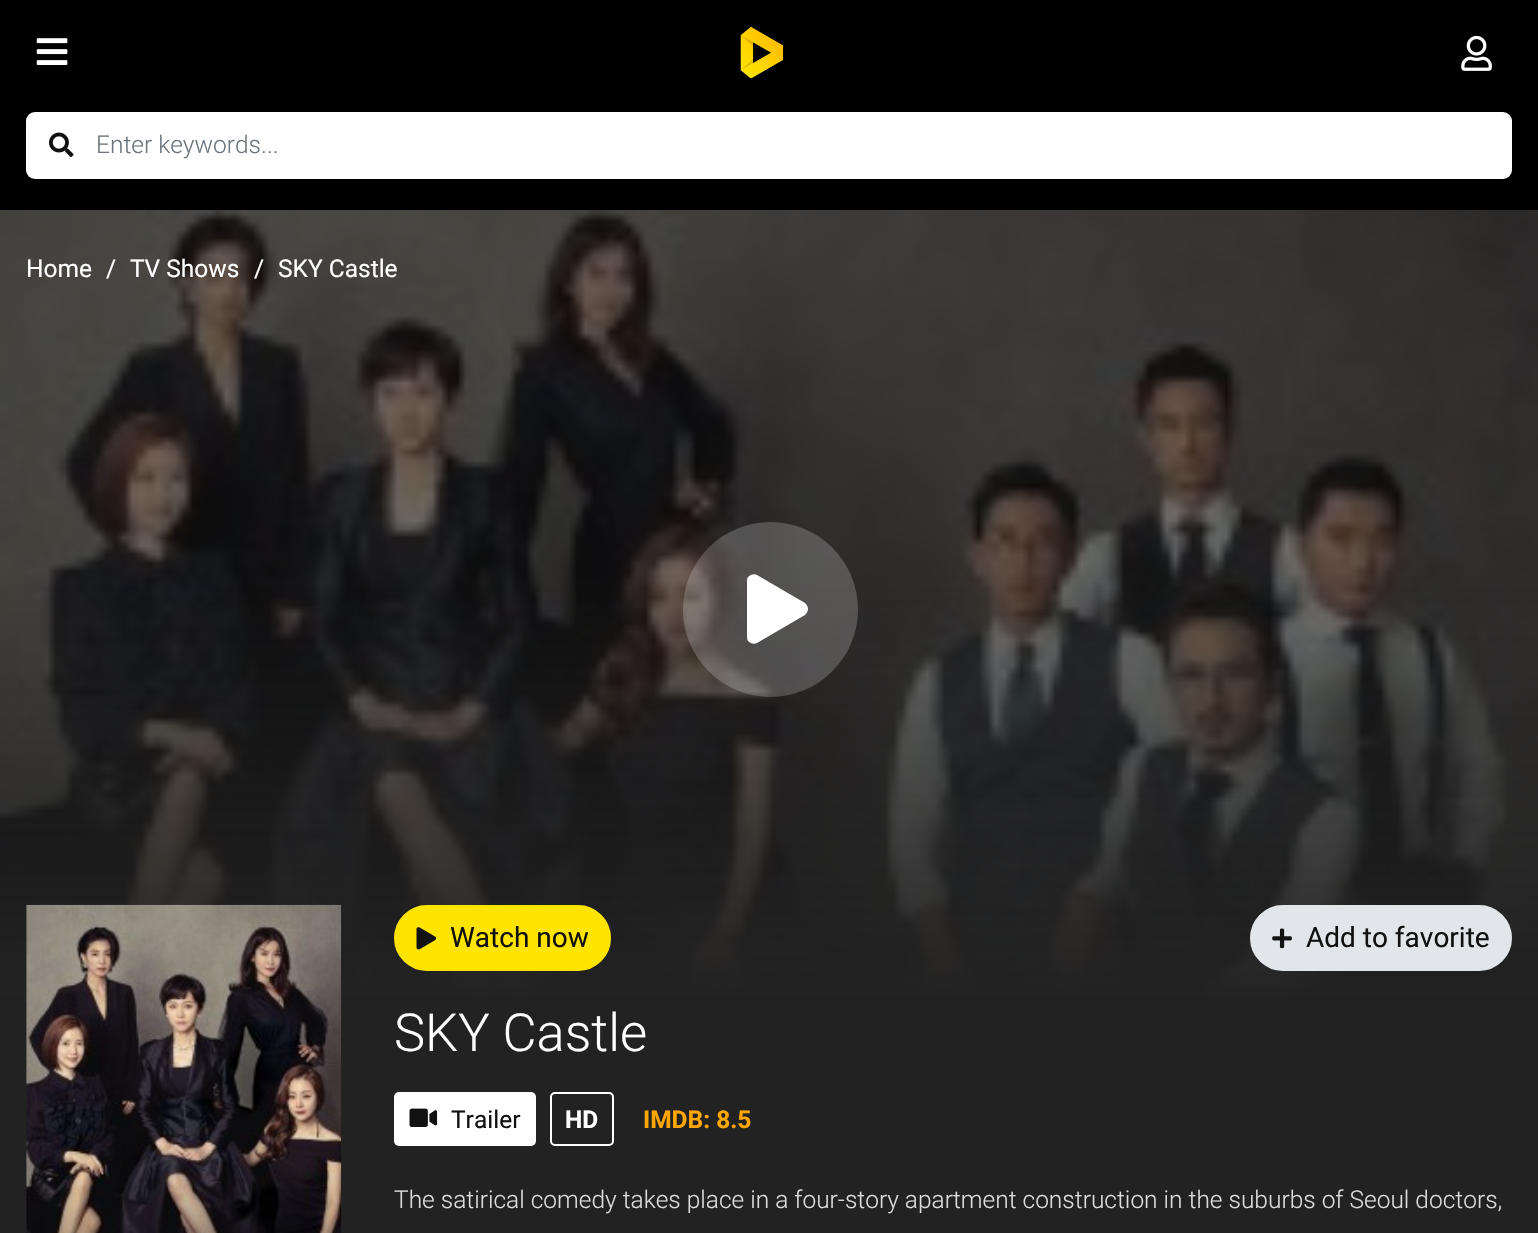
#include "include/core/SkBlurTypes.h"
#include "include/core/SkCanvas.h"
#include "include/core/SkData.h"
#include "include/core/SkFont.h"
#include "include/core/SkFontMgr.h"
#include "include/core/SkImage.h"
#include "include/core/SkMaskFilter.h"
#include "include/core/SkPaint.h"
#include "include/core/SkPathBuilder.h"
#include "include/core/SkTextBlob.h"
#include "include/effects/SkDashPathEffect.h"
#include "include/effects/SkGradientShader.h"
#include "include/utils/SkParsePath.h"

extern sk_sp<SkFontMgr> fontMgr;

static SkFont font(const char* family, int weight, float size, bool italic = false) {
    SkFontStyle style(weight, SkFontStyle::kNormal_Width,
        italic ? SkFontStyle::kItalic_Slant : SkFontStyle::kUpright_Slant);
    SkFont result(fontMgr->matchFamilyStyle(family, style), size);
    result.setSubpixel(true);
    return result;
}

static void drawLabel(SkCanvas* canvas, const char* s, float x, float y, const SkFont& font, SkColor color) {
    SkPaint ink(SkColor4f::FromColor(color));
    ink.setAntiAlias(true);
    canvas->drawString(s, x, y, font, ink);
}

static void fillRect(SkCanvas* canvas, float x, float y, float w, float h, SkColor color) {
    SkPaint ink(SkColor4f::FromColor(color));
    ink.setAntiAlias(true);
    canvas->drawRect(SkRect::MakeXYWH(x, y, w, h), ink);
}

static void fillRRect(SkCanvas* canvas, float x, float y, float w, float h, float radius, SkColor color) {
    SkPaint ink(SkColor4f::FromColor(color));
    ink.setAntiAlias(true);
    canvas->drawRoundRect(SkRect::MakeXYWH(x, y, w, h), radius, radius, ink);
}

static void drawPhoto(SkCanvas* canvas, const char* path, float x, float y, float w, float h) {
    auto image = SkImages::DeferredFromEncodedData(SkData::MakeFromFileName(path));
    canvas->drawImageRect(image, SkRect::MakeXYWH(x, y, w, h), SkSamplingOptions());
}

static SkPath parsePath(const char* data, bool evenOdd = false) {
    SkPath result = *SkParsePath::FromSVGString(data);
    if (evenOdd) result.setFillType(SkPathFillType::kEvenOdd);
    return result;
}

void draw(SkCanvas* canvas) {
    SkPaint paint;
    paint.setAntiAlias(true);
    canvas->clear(0xFF222222);
    fillRect(canvas, 0, 0, 1538, 210, 0xFF000000);
    drawPhoto(canvas, "assets/img1.png", 36, 38, 32, 27);
    drawPhoto(canvas, "assets/img2.png", 740, 27, 44, 52);
    drawPhoto(canvas, "assets/img3.png", 1461, 35, 31, 36);
    fillRRect(canvas, 26, 112, 1486, 67, 9, 0xFFFFFFFF);
    drawPhoto(canvas, "assets/img4.png", 49, 132, 25, 25);
    SkFont font1 = font("Roboto", 300, 24.5f);
    drawLabel(canvas, "Enter keywords...", 96, 153, font1, 0xFF6C757D);
    drawPhoto(canvas, "assets/img5.png", 0, 210, 1538, 785);
    {
        const SkColor colors[] = {0x00222222, 0xFF222222};
        const float stops[] = {0, 1};
        const SkPoint ends[] = {{769, 560}, {769, 998}};
        paint.setShader(SkGradientShader::MakeLinear(ends, colors, stops, 2, SkTileMode::kClamp));
        paint.setAlpha(255);
    }
    canvas->drawRect(SkRect::MakeXYWH(0, 575, 1538, 420), paint);
    SkFont font2 = font("Roboto", 400, 24.5f);
    drawLabel(canvas, "Home", 26, 277, font2, 0xFFFFFFFF);
    drawLabel(canvas, "/", 106, 277, font2, 0xFFFFFFFF);
    drawLabel(canvas, "TV Shows", 130, 277, font2, 0xFFFFFFFF);
    drawLabel(canvas, "/", 254, 277, font2, 0xFFFFFFFF);
    drawLabel(canvas, "SKY Castle", 278, 277, font2, 0xFFFFFFFF);
    paint.setShader(nullptr);
    paint.setColor(0x33FFFFFF);
    canvas->drawCircle(770.5f, 609.5f, 87.5f, paint);
    paint.setColor(0xFFFFFFFF);
    canvas->drawPath(parsePath("M805 603C807 605 808 607 808 609C808 611 807 613 805 615L757 643C755 644 753 644 751 643C748 642 747 640 747 637V581C747 578 748 576 751 575C753 574 755 574 757 575Z"), paint);
    drawPhoto(canvas, "assets/img6.png", 26, 904, 316, 329);
    paint.setColor(0xFFFFE400);
    canvas->drawRoundRect(SkRect::MakeXYWH(395, 906, 215, 64), 32, 32, paint);
    paint.setStroke(true);
    paint.setStrokeWidth(2);
    canvas->drawRoundRect(SkRect::MakeXYWH(395, 906, 215, 64), 32, 32, paint);
    drawPhoto(canvas, "assets/img7.png", 416, 927, 21, 23);
    SkFont font3 = font("Roboto", 400, 28);
    drawLabel(canvas, "Watch now", 450, 947, font3, 0xFF111111);
    paint.setStroke(false);
    paint.setColor(0xFFE2E6EA);
    canvas->drawRoundRect(SkRect::MakeXYWH(1251, 906, 260, 64), 32, 32, paint);
    paint.setStroke(true);
    canvas->drawRoundRect(SkRect::MakeXYWH(1251, 906, 260, 64), 32, 32, paint);
    drawPhoto(canvas, "assets/img8.png", 1272, 928, 20, 21);
    drawLabel(canvas, "Add to favorite", 1306, 947, font3, 0xFF111111);
    SkFont font4 = font("Roboto", 300, 52.5f);
    drawLabel(canvas, "SKY Castle", 394, 1051, font4, 0xFFFFFFFF);
    fillRRect(canvas, 394, 1092, 142, 54, 5, 0xFFFFFFFF);
    drawPhoto(canvas, "assets/img9.png", 409, 1108, 29, 19);
    drawLabel(canvas, "Trailer", 451, 1128, font2, 0xFF111111);
    paint.setColor(0xFFFFFFFF);
    canvas->drawRoundRect(SkRect::MakeXYWH(551, 1093, 62, 52), 4, 4, paint);
    SkFont font5 = font("Roboto", 700, 24.5f);
    drawLabel(canvas, "HD", 565, 1128, font5, 0xFFFFFFFF);
    drawLabel(canvas, "IMDB: 8.5", 643, 1128, font5, 0xFFFFA600);
    drawLabel(canvas, "The satirical comedy takes place in a four-story apartment construction in the suburbs of Seoul doctors,", 394, 1208, font1, 0xFFDDDDDD);
}
